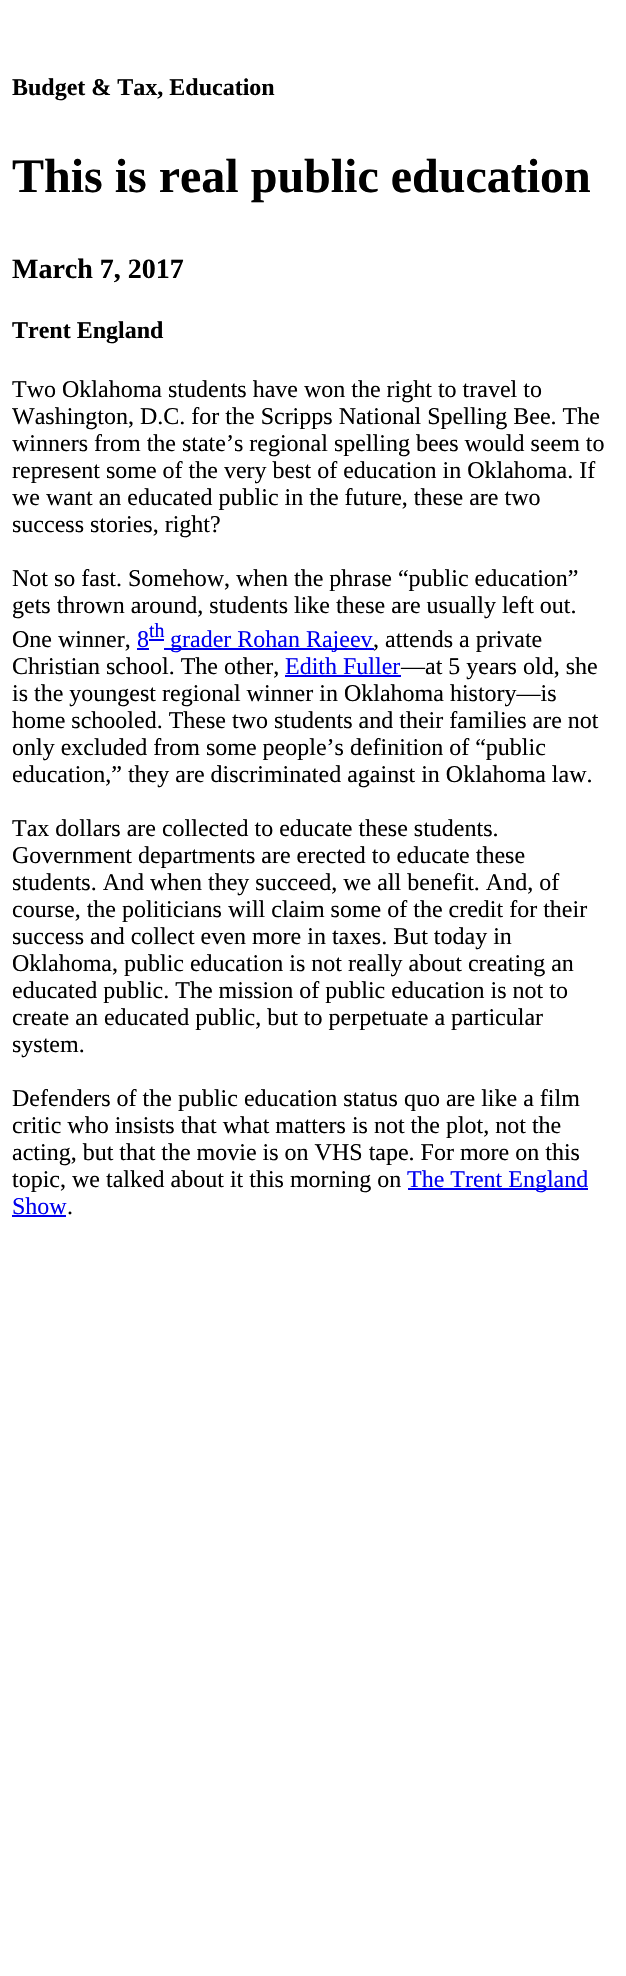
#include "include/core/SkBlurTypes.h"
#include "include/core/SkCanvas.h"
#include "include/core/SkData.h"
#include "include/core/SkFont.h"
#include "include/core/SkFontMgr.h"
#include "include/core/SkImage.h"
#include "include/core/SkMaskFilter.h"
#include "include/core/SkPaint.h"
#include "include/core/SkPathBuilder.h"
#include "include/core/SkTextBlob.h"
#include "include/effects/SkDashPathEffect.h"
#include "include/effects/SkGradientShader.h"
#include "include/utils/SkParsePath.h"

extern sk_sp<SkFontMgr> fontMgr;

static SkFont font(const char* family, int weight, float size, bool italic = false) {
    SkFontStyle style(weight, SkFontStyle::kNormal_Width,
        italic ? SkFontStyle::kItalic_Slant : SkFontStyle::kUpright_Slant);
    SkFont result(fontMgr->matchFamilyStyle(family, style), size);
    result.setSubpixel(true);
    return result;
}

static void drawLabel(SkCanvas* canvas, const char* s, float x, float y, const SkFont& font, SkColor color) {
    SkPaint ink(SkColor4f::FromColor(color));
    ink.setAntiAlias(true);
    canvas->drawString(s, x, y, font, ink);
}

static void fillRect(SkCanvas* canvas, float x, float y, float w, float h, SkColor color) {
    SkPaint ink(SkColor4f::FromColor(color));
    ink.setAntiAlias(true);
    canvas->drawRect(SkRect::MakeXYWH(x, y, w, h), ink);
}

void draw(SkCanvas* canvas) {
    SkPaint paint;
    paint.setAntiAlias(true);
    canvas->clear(0xFFFFFFFF);
    SkFont font1 = font("Liberation Serif", 700, 24);
    drawLabel(canvas, "Budget & Tax, Education", 12, 95, font1, 0xFF000000);
    SkFont font2 = font("Liberation Serif", 700, 48);
    drawLabel(canvas, "This is real public education", 12, 192, font2, 0xFF000000);
    SkFont font3 = font("Liberation Serif", 700, 28);
    drawLabel(canvas, "March 7, 2017", 12, 278, font3, 0xFF000000);
    drawLabel(canvas, "Trent England", 12, 338, font1, 0xFF000000);
    SkFont font4 = font("Liberation Serif", 400, 24);
    drawLabel(canvas, "Two Oklahoma students have won the right to travel to", 12, 397, font4, 0xFF000000);
    drawLabel(canvas, "Washington, D.C. for the Scripps National Spelling Bee. The", 12, 424, font4, 0xFF000000);
    drawLabel(canvas, "winners from the state’s regional spelling bees would seem to", 12, 451, font4, 0xFF000000);
    drawLabel(canvas, "represent some of the very best of education in Oklahoma. If", 12, 478, font4, 0xFF000000);
    drawLabel(canvas, "we want an educated public in the future, these are two", 12, 505, font4, 0xFF000000);
    drawLabel(canvas, "success stories, right?", 12, 532, font4, 0xFF000000);
    drawLabel(canvas, "Not so fast. Somehow, when the phrase “public education”", 12, 586, font4, 0xFF000000);
    drawLabel(canvas, "gets thrown around, students like these are usually left out.", 12, 613, font4, 0xFF000000);
    drawLabel(canvas, "One winner,", 12, 647, font4, 0xFF000000);
    drawLabel(canvas, "8", 137, 647, font4, 0xFF0000EE);
    fillRect(canvas, 137, 648, 12, 2, 0xFF0000EE);
    fillRect(canvas, 149, 639, 15, 2, 0xFF0000EE);
    SkFont font5 = font("Liberation Serif", 400, 20);
    drawLabel(canvas, "th", 149, 637, font5, 0xFF0000EE);
    fillRect(canvas, 164, 648, 210, 2, 0xFF0000EE);
    drawLabel(canvas, "grader Rohan Rajeev", 170, 647, font4, 0xFF0000EE);
    drawLabel(canvas, ", attends a private", 373, 647, font4, 0xFF000000);
    drawLabel(canvas, "Christian school. The other,", 12, 674, font4, 0xFF000000);
    drawLabel(canvas, "Edith Fuller", 285, 674, font4, 0xFF0000EE);
    fillRect(canvas, 285, 675, 116, 2, 0xFF0000EE);
    drawLabel(canvas, "—at 5 years old, she", 401, 674, font4, 0xFF000000);
    drawLabel(canvas, "is the youngest regional winner in Oklahoma history—is", 12, 701, font4, 0xFF000000);
    drawLabel(canvas, "home schooled. These two students and their families are not", 12, 728, font4, 0xFF000000);
    drawLabel(canvas, "only excluded from some people’s definition of “public", 12, 755, font4, 0xFF000000);
    drawLabel(canvas, "education,” they are discriminated against in Oklahoma law.", 12, 782, font4, 0xFF000000);
    drawLabel(canvas, "Tax dollars are collected to educate these students.", 12, 836, font4, 0xFF000000);
    drawLabel(canvas, "Government departments are erected to educate these", 12, 863, font4, 0xFF000000);
    drawLabel(canvas, "students. And when they succeed, we all benefit. And, of", 12, 890, font4, 0xFF000000);
    drawLabel(canvas, "course, the politicians will claim some of the credit for their", 12, 917, font4, 0xFF000000);
    drawLabel(canvas, "success and collect even more in taxes. But today in", 12, 944, font4, 0xFF000000);
    drawLabel(canvas, "Oklahoma, public education is not really about creating an", 12, 971, font4, 0xFF000000);
    drawLabel(canvas, "educated public. The mission of public education is not to", 12, 998, font4, 0xFF000000);
    drawLabel(canvas, "create an educated public, but to perpetuate a particular", 12, 1025, font4, 0xFF000000);
    drawLabel(canvas, "system.", 12, 1052, font4, 0xFF000000);
    drawLabel(canvas, "Defenders of the public education status quo are like a film", 12, 1106, font4, 0xFF000000);
    drawLabel(canvas, "critic who insists that what matters is not the plot, not the", 12, 1133, font4, 0xFF000000);
    drawLabel(canvas, "acting, but that the movie is on VHS tape. For more on this", 12, 1160, font4, 0xFF000000);
    drawLabel(canvas, "topic, we talked about it this morning on", 12, 1187, font4, 0xFF000000);
    fillRect(canvas, 408, 1188, 180, 2, 0xFF0000EE);
    drawLabel(canvas, "The Trent England", 407, 1187, font4, 0xFF0000EE);
    drawLabel(canvas, "Show", 12, 1214, font4, 0xFF0000EE);
    fillRect(canvas, 12, 1215, 54, 2, 0xFF0000EE);
    drawLabel(canvas, ".", 67, 1214, font4, 0xFF000000);
}
